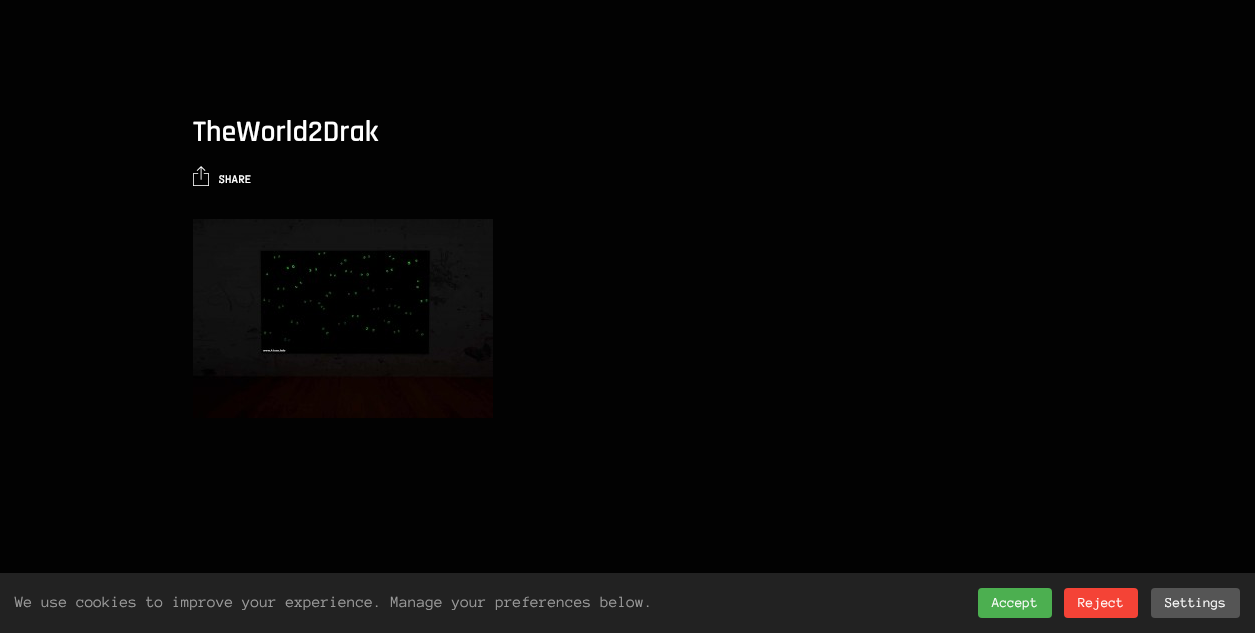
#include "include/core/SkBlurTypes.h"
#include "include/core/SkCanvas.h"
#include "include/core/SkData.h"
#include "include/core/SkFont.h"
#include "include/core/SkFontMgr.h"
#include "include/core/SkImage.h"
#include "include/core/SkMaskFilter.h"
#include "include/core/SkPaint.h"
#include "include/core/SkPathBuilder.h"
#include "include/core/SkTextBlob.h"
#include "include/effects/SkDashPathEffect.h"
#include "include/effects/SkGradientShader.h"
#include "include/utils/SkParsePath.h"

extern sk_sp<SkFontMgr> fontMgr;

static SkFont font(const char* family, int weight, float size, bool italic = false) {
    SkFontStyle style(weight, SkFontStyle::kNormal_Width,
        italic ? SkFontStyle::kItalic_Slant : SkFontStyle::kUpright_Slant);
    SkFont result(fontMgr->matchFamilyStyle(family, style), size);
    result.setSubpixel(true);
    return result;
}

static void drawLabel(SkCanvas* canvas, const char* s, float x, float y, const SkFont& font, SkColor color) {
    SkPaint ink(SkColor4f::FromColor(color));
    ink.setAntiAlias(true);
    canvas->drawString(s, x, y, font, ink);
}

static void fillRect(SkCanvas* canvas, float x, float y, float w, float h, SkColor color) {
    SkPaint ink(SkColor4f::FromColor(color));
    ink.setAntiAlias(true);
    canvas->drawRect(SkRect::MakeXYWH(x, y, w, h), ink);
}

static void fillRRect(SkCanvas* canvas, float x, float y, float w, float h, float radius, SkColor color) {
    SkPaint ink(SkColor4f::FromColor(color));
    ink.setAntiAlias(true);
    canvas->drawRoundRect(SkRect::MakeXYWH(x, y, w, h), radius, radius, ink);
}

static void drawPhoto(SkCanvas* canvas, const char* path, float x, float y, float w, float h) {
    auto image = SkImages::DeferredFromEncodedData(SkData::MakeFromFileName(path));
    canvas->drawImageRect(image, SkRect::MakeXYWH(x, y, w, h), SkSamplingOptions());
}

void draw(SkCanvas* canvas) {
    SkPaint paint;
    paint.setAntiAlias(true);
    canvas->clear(0xFF020202);
    SkFont font1 = font("Rajdhani", 600, 30);
    drawLabel(canvas, "TheWorld2Drak", 193, 141, font1, 0xFFFFFFFF);
    drawPhoto(canvas, "assets/img1.png", 193, 166, 16, 20);
    SkFont font2 = font("Anonymous Pro", 700, 12);
    drawLabel(canvas, "SHARE", 219, 183, font2, 0xFFFFFFFF);
    drawPhoto(canvas, "assets/img2.png", 193, 219, 300, 199);
    fillRect(canvas, 0, 573, 1255, 60, 0xFF222222);
    SkFont font3 = font("Anonymous Pro", 400, 16);
    drawLabel(canvas, "We use cookies to improve your experience. Manage your preferences below.", 15, 607, font3, 0xFF999999);
    fillRRect(canvas, 978, 588, 74, 30, 4, 0xFF4CAF50);
    SkFont font4 = font("Anonymous Pro", 400, 14);
    drawLabel(canvas, "Accept", 992, 607, font4, 0xFFFFFFFF);
    fillRRect(canvas, 1064, 588, 74, 30, 4, 0xFFF44336);
    drawLabel(canvas, "Reject", 1078, 607, font4, 0xFFFFFFFF);
    fillRRect(canvas, 1151, 588, 89, 30, 4, 0xFF555555);
    drawLabel(canvas, "Settings", 1165, 607, font4, 0xFFFFFFFF);
}
